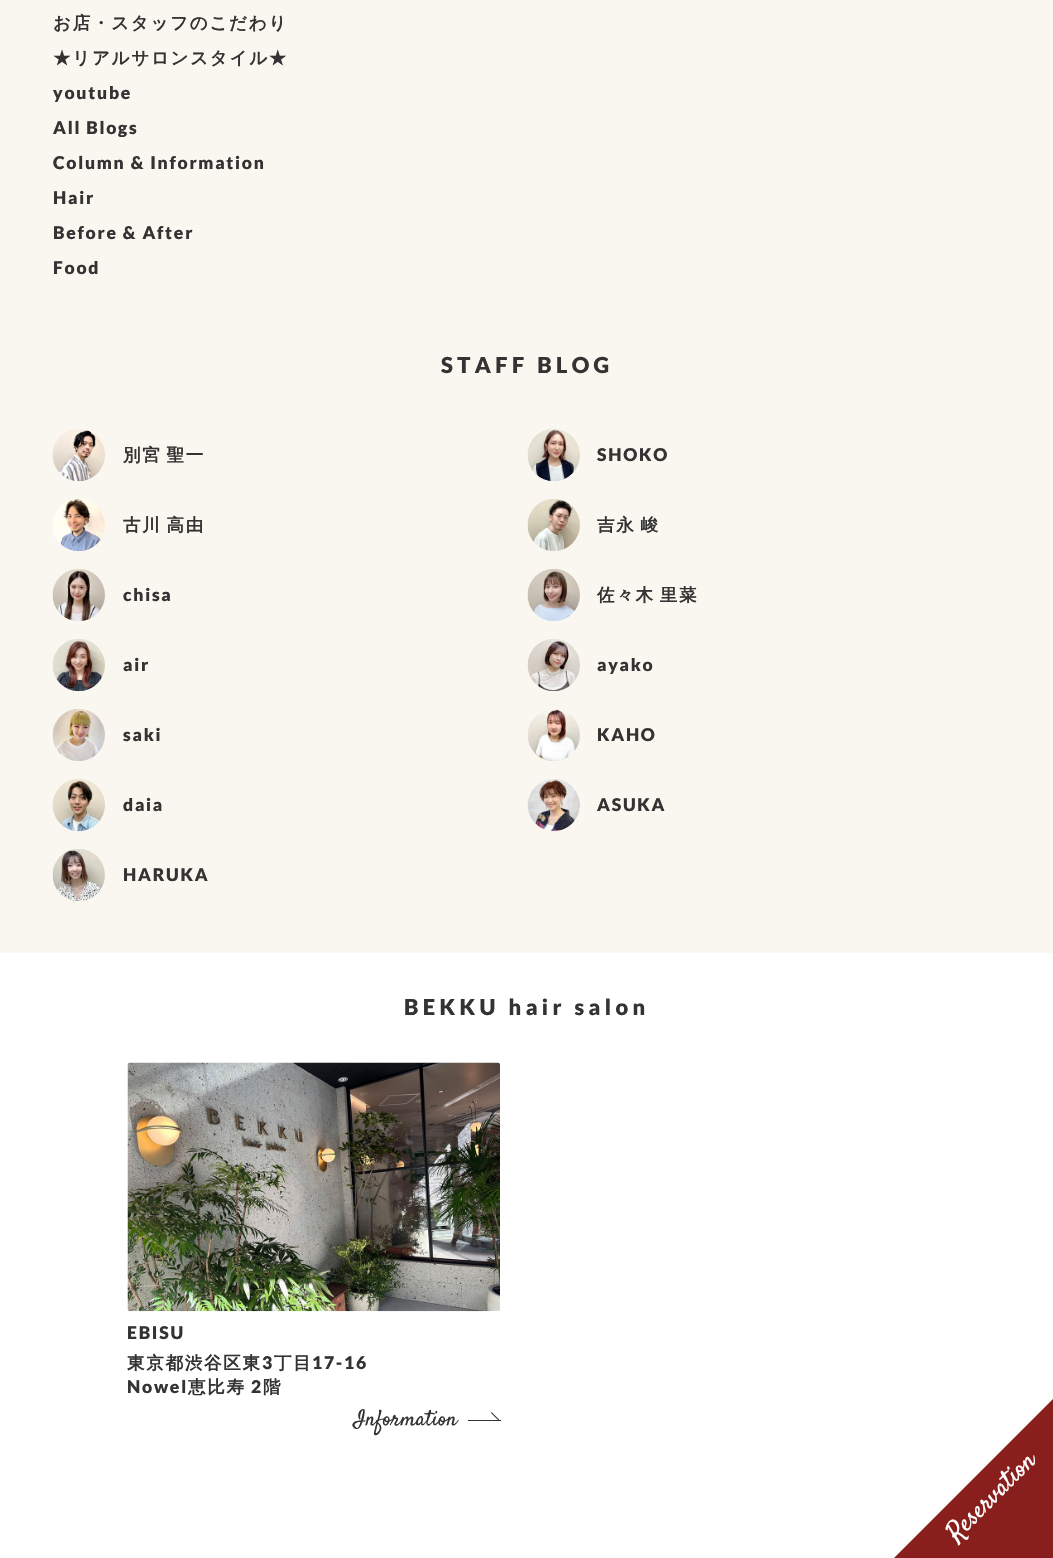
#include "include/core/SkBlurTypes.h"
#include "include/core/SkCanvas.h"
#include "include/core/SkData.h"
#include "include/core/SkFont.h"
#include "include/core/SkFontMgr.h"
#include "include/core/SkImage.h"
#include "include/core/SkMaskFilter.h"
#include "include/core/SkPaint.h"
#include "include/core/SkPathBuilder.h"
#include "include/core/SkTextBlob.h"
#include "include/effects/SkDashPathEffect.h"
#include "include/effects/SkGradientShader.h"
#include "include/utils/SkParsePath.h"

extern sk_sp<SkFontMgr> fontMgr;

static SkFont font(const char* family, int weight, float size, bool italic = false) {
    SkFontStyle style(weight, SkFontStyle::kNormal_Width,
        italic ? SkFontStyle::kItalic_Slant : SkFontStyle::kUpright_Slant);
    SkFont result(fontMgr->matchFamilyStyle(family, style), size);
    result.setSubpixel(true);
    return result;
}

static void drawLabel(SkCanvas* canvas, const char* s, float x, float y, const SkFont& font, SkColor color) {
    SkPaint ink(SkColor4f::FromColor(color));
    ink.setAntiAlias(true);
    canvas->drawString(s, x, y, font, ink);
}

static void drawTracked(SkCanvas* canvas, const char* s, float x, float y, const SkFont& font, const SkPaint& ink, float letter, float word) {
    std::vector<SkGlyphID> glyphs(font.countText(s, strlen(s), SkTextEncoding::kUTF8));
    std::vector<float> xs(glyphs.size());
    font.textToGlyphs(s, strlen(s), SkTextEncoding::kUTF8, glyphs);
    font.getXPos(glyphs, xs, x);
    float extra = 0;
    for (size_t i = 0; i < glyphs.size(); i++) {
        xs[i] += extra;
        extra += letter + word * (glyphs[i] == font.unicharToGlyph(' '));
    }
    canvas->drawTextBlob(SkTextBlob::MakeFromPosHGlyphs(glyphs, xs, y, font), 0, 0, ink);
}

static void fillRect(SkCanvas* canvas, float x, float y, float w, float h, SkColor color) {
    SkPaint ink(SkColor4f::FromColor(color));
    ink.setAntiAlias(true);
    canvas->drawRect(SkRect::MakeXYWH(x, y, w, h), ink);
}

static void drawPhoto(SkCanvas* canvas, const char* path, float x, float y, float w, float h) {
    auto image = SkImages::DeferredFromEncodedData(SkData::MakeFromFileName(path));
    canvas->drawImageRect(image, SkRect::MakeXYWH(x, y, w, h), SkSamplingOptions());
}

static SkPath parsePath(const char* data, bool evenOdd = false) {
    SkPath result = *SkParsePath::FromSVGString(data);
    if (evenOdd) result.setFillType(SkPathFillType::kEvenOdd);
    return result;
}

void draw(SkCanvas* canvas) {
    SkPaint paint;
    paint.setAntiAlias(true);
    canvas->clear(0xFFFFFFFF);
    fillRect(canvas, 0, 0, 1053, 953, 0xFFFAF7F0);
    SkFont font1 = font("WenQuanYi Zen Hei", 700, 17.5f);
    paint.setColor(0xFF333333);
    drawTracked(canvas, "お店・スタッフのこだわり", 53, 29, font1, paint, 1.75f, 0);
    drawTracked(canvas, "★リアルサロンスタイル★", 53, 64, font1, paint, 1.75f, 0);
    SkFont font2 = font("Lato", 900, 17.5f);
    drawTracked(canvas, "youtube", 53, 99, font2, paint, 1.75f, 0);
    drawTracked(canvas, "All Blogs", 53, 134, font2, paint, 1.75f, 0);
    drawTracked(canvas, "Column & Information", 53, 169, font2, paint, 1.75f, 0);
    drawTracked(canvas, "Hair", 53, 204, font2, paint, 1.75f, 0);
    drawTracked(canvas, "Before & After", 53, 239, font2, paint, 1.75f, 0);
    drawTracked(canvas, "Food", 53, 274, font2, paint, 1.75f, 0);
    SkFont font3 = font("Lato", 900, 21.9f);
    drawTracked(canvas, "STAFF BLOG", 441, 373, font3, paint, 4.4f, 0);
    drawPhoto(canvas, "assets/img1.png", 52, 429, 53, 53);
    drawTracked(canvas, "別宮 聖一", 123, 461, font1, paint, 1.75f, -2);
    drawPhoto(canvas, "assets/img2.png", 527, 429, 53, 52);
    drawTracked(canvas, "SHOKO", 597, 461, font2, paint, 1.75f, 0);
    drawPhoto(canvas, "assets/img3.png", 53, 499, 52, 53);
    drawTracked(canvas, "古川 高由", 123, 531, font1, paint, 1.75f, -2);
    drawPhoto(canvas, "assets/img4.png", 527, 499, 53, 52);
    drawTracked(canvas, "吉永 峻", 597, 531, font1, paint, 1.75f, -2);
    drawPhoto(canvas, "assets/img5.png", 52, 569, 53, 52);
    drawTracked(canvas, "chisa", 123, 601, font2, paint, 1.75f, 0);
    drawPhoto(canvas, "assets/img6.png", 527, 569, 53, 52);
    drawTracked(canvas, "佐々木 里菜", 597, 601, font1, paint, 1.75f, -2);
    drawPhoto(canvas, "assets/img7.png", 52, 639, 53, 53);
    drawTracked(canvas, "air", 123, 671, font2, paint, 1.75f, 0);
    drawPhoto(canvas, "assets/img8.png", 527, 639, 53, 53);
    drawTracked(canvas, "ayako", 597, 671, font2, paint, 1.75f, 0);
    drawPhoto(canvas, "assets/img9.png", 52, 709, 53, 52);
    drawTracked(canvas, "saki", 123, 741, font2, paint, 1.75f, 0);
    drawPhoto(canvas, "assets/img10.png", 527, 709, 53, 52);
    drawTracked(canvas, "KAHO", 597, 741, font2, paint, 1.75f, 0);
    drawPhoto(canvas, "assets/img11.png", 52, 779, 53, 53);
    drawTracked(canvas, "daia", 123, 811, font2, paint, 1.75f, 0);
    drawPhoto(canvas, "assets/img12.png", 527, 779, 53, 53);
    drawTracked(canvas, "ASUKA", 597, 811, font2, paint, 1.75f, 0);
    drawPhoto(canvas, "assets/img13.png", 52, 849, 53, 52);
    drawTracked(canvas, "HARUKA", 123, 881, font2, paint, 1.75f, 0);
    drawTracked(canvas, "BEKKU hair salon", 404, 1015, font3, paint, 4.4f, 0);
    drawPhoto(canvas, "assets/img14.png", 127, 1062, 373, 250);
    drawTracked(canvas, "EBISU", 127, 1339, font2, paint, 1.75f, 0);
    drawTracked(canvas, "東京都渋谷区東", 127, 1369, font1, paint, 1.75f, 0);
    drawTracked(canvas, "3", 262, 1369, font2, paint, 1.75f, 0);
    drawTracked(canvas, "丁目", 274, 1369, font1, paint, 1.75f, 0);
    drawTracked(canvas, "17-16", 312, 1369, font2, paint, 1.75f, 0);
    drawTracked(canvas, "Nowel", 127, 1393, font2, paint, 1.75f, 0);
    drawTracked(canvas, "恵比寿", 188, 1393, font1, paint, 1.75f, 0);
    drawTracked(canvas, "2", 251, 1393, font2, paint, 1.75f, 0);
    drawTracked(canvas, "階", 263, 1393, font1, paint, 1.75f, 0);
    SkFont font4 = font("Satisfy", 400, 21.9f);
    drawLabel(canvas, "Information", 354, 1425, font4, 0xFF333333);
    fillRect(canvas, 468, 1420, 33, 1, 0xFF333333);
    canvas->drawPath(parsePath("M491.5 1412L499.5 1420L498.5 1420.5L491 1413Z"), paint);
    paint.setColor(0xFF881F1C);
    canvas->drawPath(parsePath("M825 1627L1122 1330L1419 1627L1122 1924Z"), paint);
    SkFont font5 = font("Satisfy", 400, 26.25f);
    canvas->save();
    canvas->rotate(-45, 956, 1542);
    drawLabel(canvas, "Reservation", 956, 1542, font5, 0xFFFFFFFF);
    canvas->restore();
}
